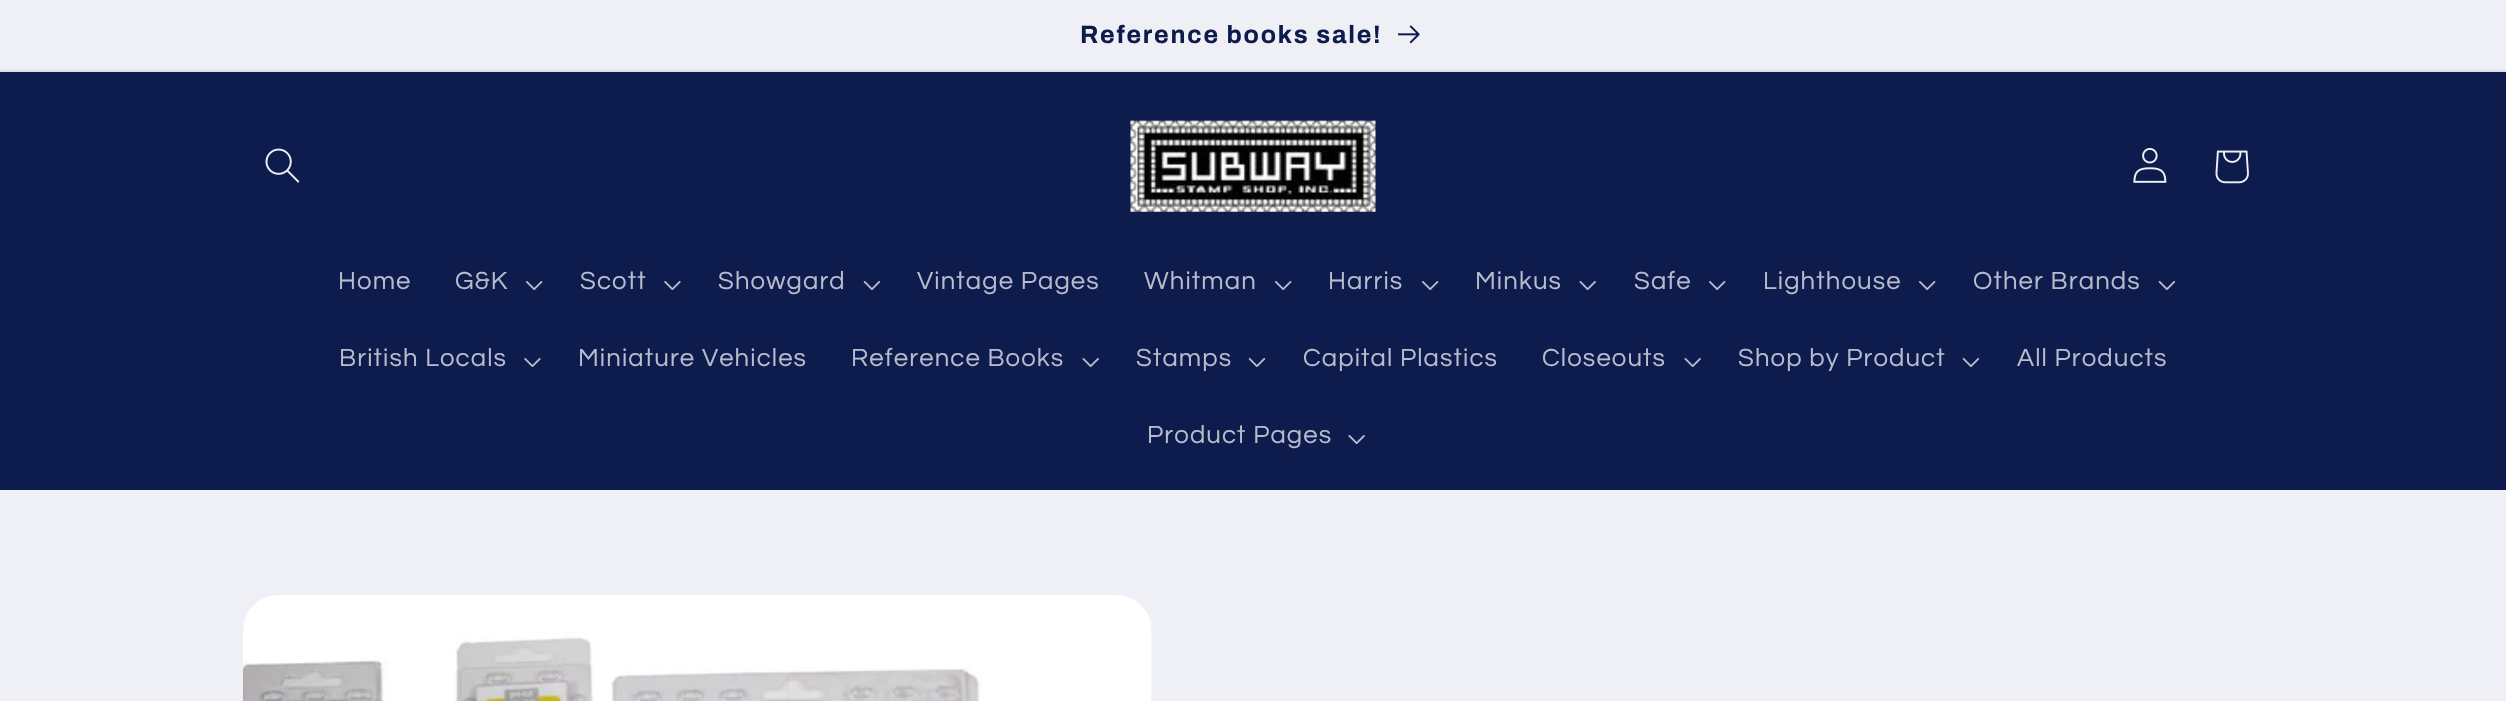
#include "include/core/SkBlurTypes.h"
#include "include/core/SkCanvas.h"
#include "include/core/SkData.h"
#include "include/core/SkFont.h"
#include "include/core/SkFontMgr.h"
#include "include/core/SkImage.h"
#include "include/core/SkMaskFilter.h"
#include "include/core/SkPaint.h"
#include "include/core/SkPathBuilder.h"
#include "include/core/SkTextBlob.h"
#include "include/effects/SkDashPathEffect.h"
#include "include/effects/SkGradientShader.h"
#include "include/utils/SkParsePath.h"

extern sk_sp<SkFontMgr> fontMgr;

static SkFont font(const char* family, int weight, float size, bool italic = false) {
    SkFontStyle style(weight, SkFontStyle::kNormal_Width,
        italic ? SkFontStyle::kItalic_Slant : SkFontStyle::kUpright_Slant);
    SkFont result(fontMgr->matchFamilyStyle(family, style), size);
    result.setSubpixel(true);
    return result;
}

static void drawTracked(SkCanvas* canvas, const char* s, float x, float y, const SkFont& font, const SkPaint& ink, float letter, float word) {
    std::vector<SkGlyphID> glyphs(font.countText(s, strlen(s), SkTextEncoding::kUTF8));
    std::vector<float> xs(glyphs.size());
    font.textToGlyphs(s, strlen(s), SkTextEncoding::kUTF8, glyphs);
    font.getXPos(glyphs, xs, x);
    float extra = 0;
    for (size_t i = 0; i < glyphs.size(); i++) {
        xs[i] += extra;
        extra += letter + word * (glyphs[i] == font.unicharToGlyph(' '));
    }
    canvas->drawTextBlob(SkTextBlob::MakeFromPosHGlyphs(glyphs, xs, y, font), 0, 0, ink);
}

static void fillRect(SkCanvas* canvas, float x, float y, float w, float h, SkColor color) {
    SkPaint ink(SkColor4f::FromColor(color));
    ink.setAntiAlias(true);
    canvas->drawRect(SkRect::MakeXYWH(x, y, w, h), ink);
}

static void drawPhoto(SkCanvas* canvas, const char* path, float x, float y, float w, float h) {
    auto image = SkImages::DeferredFromEncodedData(SkData::MakeFromFileName(path));
    canvas->drawImageRect(image, SkRect::MakeXYWH(x, y, w, h), SkSamplingOptions());
}

void draw(SkCanvas* canvas) {
    SkPaint paint;
    paint.setAntiAlias(true);
    canvas->clear(0xFFEFF0F5);
    fillRect(canvas, 0, 70, 2506, 2, 0xFFDDDFE8);
    SkFont font1 = font("Archivo", 700, 25);
    paint.setColor(0xFF0E1B4D);
    drawTracked(canvas, "Reference books sale!", 1080, 43, font1, paint, 1.8f, 0);
    drawPhoto(canvas, "assets/img1.png", 1398, 25, 22, 19);
    fillRect(canvas, 0, 72, 2506, 418, 0xFF0E1B4D);
    drawPhoto(canvas, "assets/img2.png", 265, 148, 35, 35);
    drawPhoto(canvas, "assets/img3.png", 1130, 120, 246, 92);
    drawPhoto(canvas, "assets/img4.png", 2133, 148, 34, 35);
    drawPhoto(canvas, "assets/img5.png", 2215, 150, 34, 34);
    SkFont font2 = font("Questrial", 400, 25.75f);
    paint.setColor(0xFFB7BBCB);
    drawTracked(canvas, "Home", 338, 289, font2, paint, 1.1f, 0);
    drawTracked(canvas, "G&K", 455, 289, font2, paint, 1.1f, 0);
    drawPhoto(canvas, "assets/img6.png", 526, 281, 17, 9);
    drawTracked(canvas, "Scott", 580, 289, font2, paint, 1.1f, 0);
    drawPhoto(canvas, "assets/img7.png", 664, 281, 17, 9);
    drawTracked(canvas, "Showgard", 718, 289, font2, paint, 1.1f, 0);
    drawPhoto(canvas, "assets/img8.png", 863, 281, 17, 9);
    drawTracked(canvas, "Vintage Pages", 917, 289, font2, paint, 1.1f, 0);
    drawTracked(canvas, "Whitman", 1144, 289, font2, paint, 1.1f, 0);
    drawPhoto(canvas, "assets/img6.png", 1275, 281, 17, 9);
    drawTracked(canvas, "Harris", 1328, 289, font2, paint, 1.1f, 0);
    drawPhoto(canvas, "assets/img6.png", 1422, 281, 17, 9);
    drawTracked(canvas, "Minkus", 1475, 289, font2, paint, 1.1f, 0);
    drawPhoto(canvas, "assets/img9.png", 1579, 281, 17, 9);
    drawTracked(canvas, "Safe", 1634, 289, font2, paint, 1.1f, 0);
    drawPhoto(canvas, "assets/img6.png", 1709, 281, 17, 9);
    drawTracked(canvas, "Lighthouse", 1763, 289, font2, paint, 1.1f, 0);
    drawPhoto(canvas, "assets/img6.png", 1919, 281, 17, 9);
    drawTracked(canvas, "Other Brands", 1973, 289, font2, paint, 1.1f, 0);
    drawPhoto(canvas, "assets/img8.png", 2158, 281, 17, 9);
    drawTracked(canvas, "British Locals", 339, 366, font2, paint, 1.1f, 0);
    drawPhoto(canvas, "assets/img7.png", 524, 358, 17, 9);
    drawTracked(canvas, "Miniature Vehicles", 578, 366, font2, paint, 1.1f, 0);
    drawTracked(canvas, "Reference Books", 851, 366, font2, paint, 1.1f, 0);
    drawPhoto(canvas, "assets/img9.png", 1082, 358, 17, 9);
    drawTracked(canvas, "Stamps", 1136, 366, font2, paint, 1.1f, 0);
    drawPhoto(canvas, "assets/img10.png", 1248, 358, 18, 9);
    drawTracked(canvas, "Capital Plastics", 1303, 366, font2, paint, 1.1f, 0);
    drawTracked(canvas, "Closeouts", 1542, 366, font2, paint, 1.1f, 0);
    drawPhoto(canvas, "assets/img9.png", 1684, 358, 17, 9);
    drawTracked(canvas, "Shop by Product", 1738, 366, font2, paint, 1.1f, 0);
    drawPhoto(canvas, "assets/img10.png", 1962, 358, 18, 9);
    drawTracked(canvas, "All Products", 2017, 366, font2, paint, 1.1f, 0);
    drawTracked(canvas, "Product Pages", 1147, 443, font2, paint, 1.1f, 0);
    drawPhoto(canvas, "assets/img9.png", 1348, 435, 17, 9);
    drawPhoto(canvas, "assets/img11.png", 243, 595, 909, 106);
}
